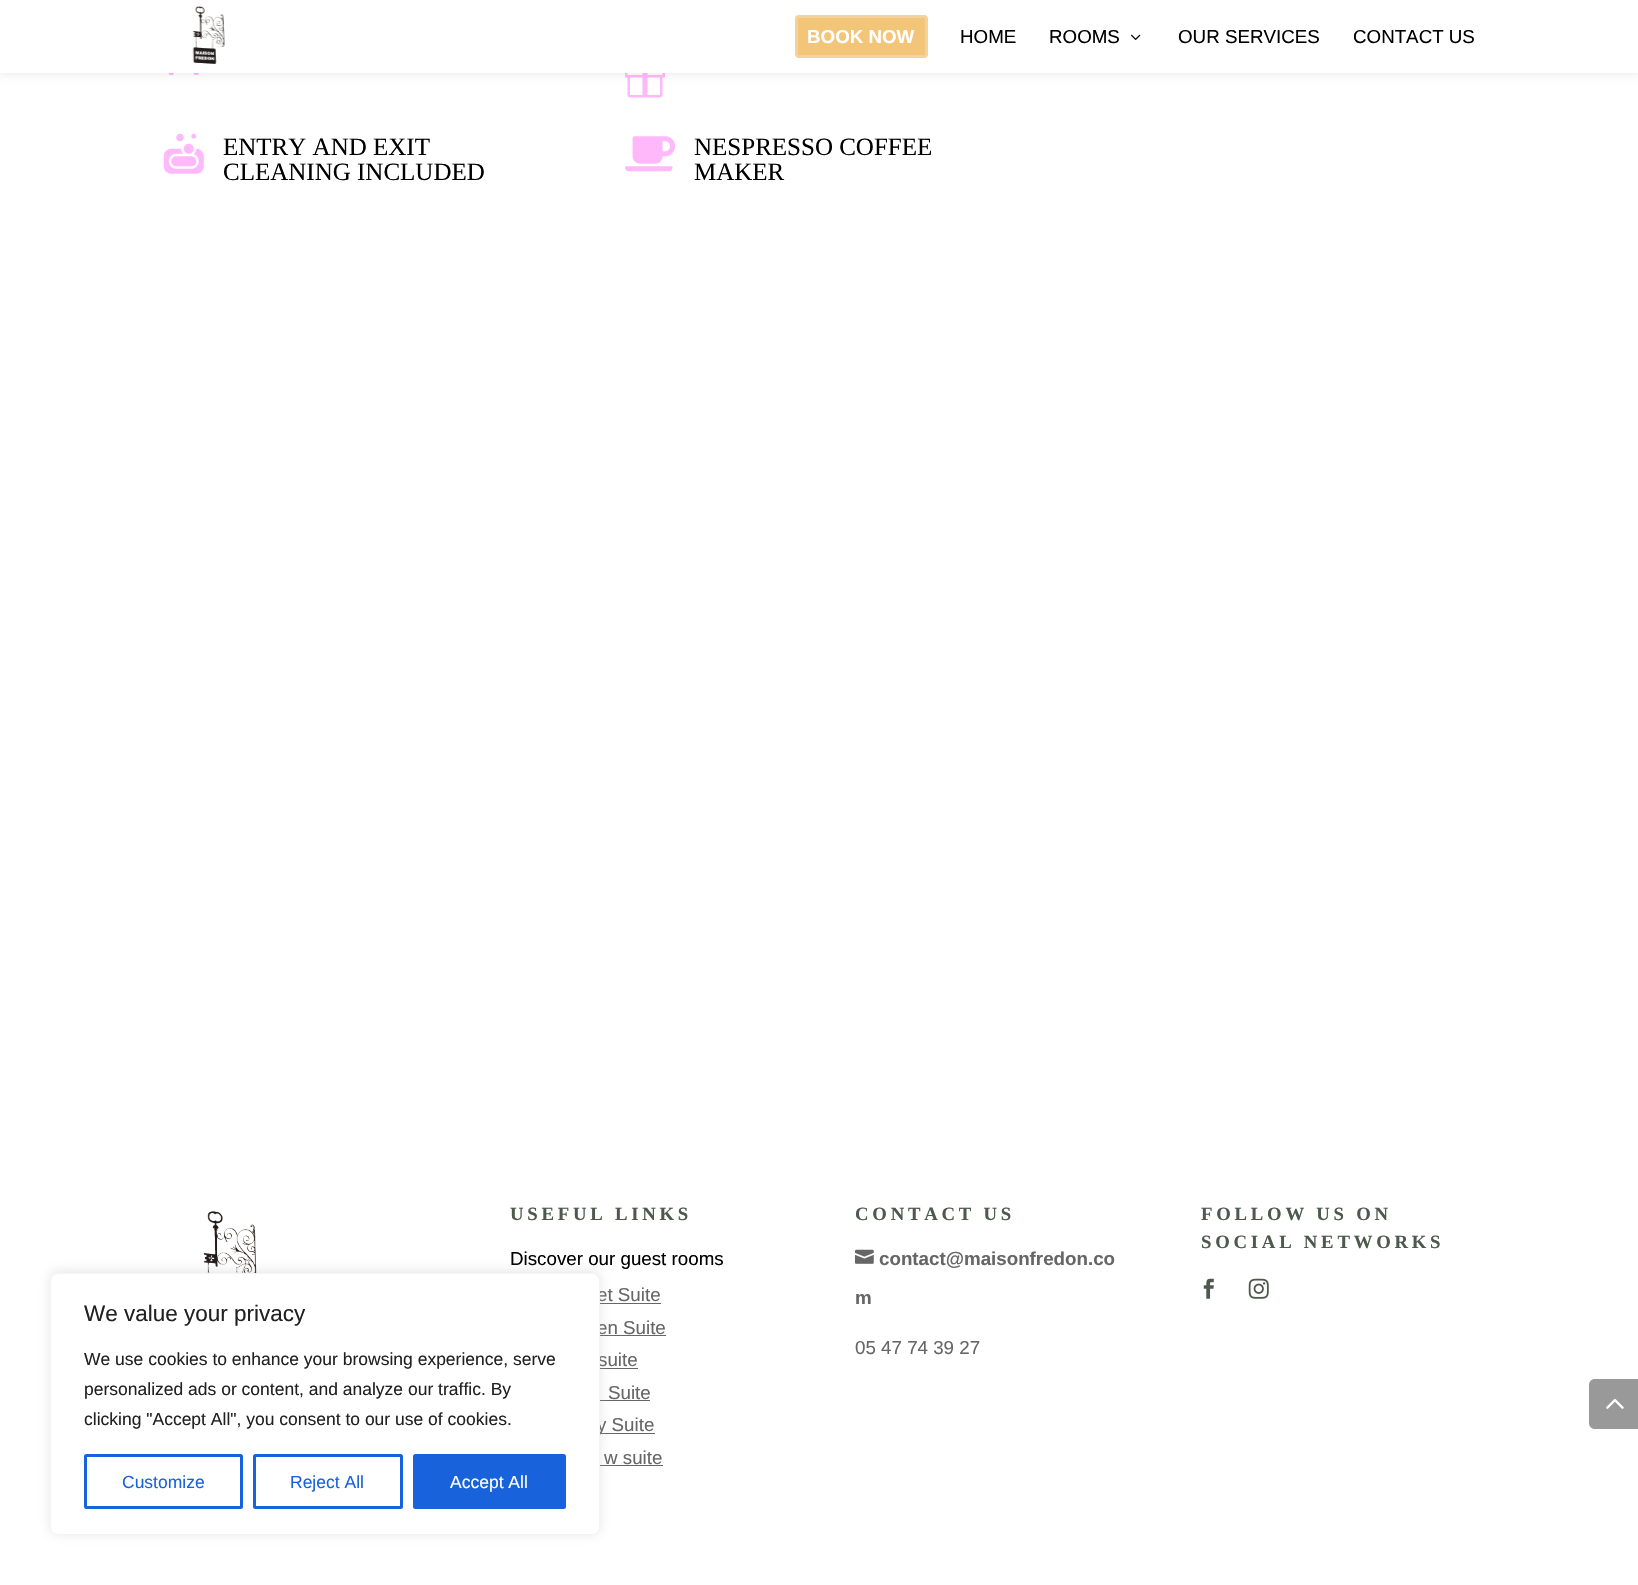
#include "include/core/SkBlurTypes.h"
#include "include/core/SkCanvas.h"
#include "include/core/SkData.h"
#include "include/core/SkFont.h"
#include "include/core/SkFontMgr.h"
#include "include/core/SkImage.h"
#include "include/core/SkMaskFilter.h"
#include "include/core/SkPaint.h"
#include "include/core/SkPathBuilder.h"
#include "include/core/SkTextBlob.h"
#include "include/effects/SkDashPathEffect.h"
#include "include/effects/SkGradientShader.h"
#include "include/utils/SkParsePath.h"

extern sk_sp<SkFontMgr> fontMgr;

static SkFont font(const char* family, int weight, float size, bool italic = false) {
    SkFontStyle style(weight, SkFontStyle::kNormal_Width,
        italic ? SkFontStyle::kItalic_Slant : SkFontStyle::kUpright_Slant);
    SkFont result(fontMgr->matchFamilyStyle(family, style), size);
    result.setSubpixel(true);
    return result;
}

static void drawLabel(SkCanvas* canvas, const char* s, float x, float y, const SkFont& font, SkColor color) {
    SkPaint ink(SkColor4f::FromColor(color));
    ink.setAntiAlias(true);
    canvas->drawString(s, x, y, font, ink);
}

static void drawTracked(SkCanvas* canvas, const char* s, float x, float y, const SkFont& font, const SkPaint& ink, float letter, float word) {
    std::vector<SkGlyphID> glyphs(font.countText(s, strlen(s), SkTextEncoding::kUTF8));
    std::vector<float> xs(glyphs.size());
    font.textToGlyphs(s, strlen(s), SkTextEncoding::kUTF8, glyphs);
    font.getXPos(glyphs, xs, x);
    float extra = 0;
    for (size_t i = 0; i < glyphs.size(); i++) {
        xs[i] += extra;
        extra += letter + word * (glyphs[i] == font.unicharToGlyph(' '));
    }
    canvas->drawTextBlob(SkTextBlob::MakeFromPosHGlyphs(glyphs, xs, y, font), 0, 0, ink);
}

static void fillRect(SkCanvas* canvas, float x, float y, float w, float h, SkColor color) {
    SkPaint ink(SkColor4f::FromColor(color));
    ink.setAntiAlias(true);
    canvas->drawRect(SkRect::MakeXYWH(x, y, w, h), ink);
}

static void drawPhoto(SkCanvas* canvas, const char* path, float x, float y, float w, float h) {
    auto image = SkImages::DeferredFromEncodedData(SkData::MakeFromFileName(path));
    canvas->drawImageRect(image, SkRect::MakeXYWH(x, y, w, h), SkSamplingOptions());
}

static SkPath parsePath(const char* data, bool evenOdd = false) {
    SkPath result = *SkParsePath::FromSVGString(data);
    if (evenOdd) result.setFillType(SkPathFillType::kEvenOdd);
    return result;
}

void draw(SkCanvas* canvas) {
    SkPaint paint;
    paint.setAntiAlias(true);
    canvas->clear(0xFFFFFFFF);
    drawPhoto(canvas, "assets/img3.png", 168, 73, 31, 2);
    drawPhoto(canvas, "assets/img5.png", 625, 73, 40, 25);
    paint.setColor(0x1A000000);
    paint.setMaskFilter(SkMaskFilter::MakeBlur(kNormal_SkBlurStyle, 4.5f));
    canvas->drawRect(SkRect::MakeXYWH(0, 0, 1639, 73), paint);
    paint.setMaskFilter(nullptr);
    fillRect(canvas, 0, 0, 1638, 73, 0xFFFFFFFF);
    drawPhoto(canvas, "assets/img1.png", 192, 6, 33, 58);
    paint.setColor(0xFFF2C579);
    canvas->drawRoundRect(SkRect::MakeXYWH(796.5f, 16.5f, 130, 40), 2.5f, 2.5f, paint);
    paint.setStroke(true);
    paint.setStrokeWidth(3);
    paint.setColor(0xFFF3D29B);
    canvas->drawRoundRect(SkRect::MakeXYWH(796.5f, 16.5f, 130, 40), 2.5f, 2.5f, paint);
    SkFont font1 = font("Liberation Sans", 700, 18.75f);
    drawLabel(canvas, "BOOK NOW", 807, 43, font1, 0xFFFFFFFF);
    SkFont font2 = font("Liberation Sans", 400, 18.75f);
    drawLabel(canvas, "HOME", 960, 43, font2, 0xFF000000);
    drawLabel(canvas, "ROOMS", 1049, 43, font2, 0xFF000000);
    drawPhoto(canvas, "assets/img2.png", 1131, 34, 10, 6);
    drawLabel(canvas, "OUR SERVICES", 1178, 43, font2, 0xFF000000);
    drawLabel(canvas, "CONTACT US", 1353, 43, font2, 0xFF000000);
    drawPhoto(canvas, "assets/img4.png", 163, 133, 41, 41);
    SkFont font3 = font("Liberation Serif", 400, 25);
    drawLabel(canvas, "ENTRY AND EXIT", 223, 155, font3, 0xFF000000);
    drawLabel(canvas, "CLEANING INCLUDED", 223, 180, font3, 0xFF000000);
    drawPhoto(canvas, "assets/img6.png", 625, 136, 50, 36);
    drawLabel(canvas, "NESPRESSO COFFEE", 694, 155, font3, 0xFF000000);
    drawLabel(canvas, "MAKER", 694, 180, font3, 0xFF000000);
    drawPhoto(canvas, "assets/img7.png", 203, 1211, 54, 62);
    SkFont font4 = font("Liberation Serif", 700, 18.75f);
    paint.setStroke(false);
    paint.setColor(0xFF4C594C);
    drawTracked(canvas, "USEFUL LINKS", 510, 1220, font4, paint, 3.75f, 0);
    drawLabel(canvas, "Discover our guest rooms", 510, 1265, font2, 0xFF000000);
    drawLabel(canvas, "et Suite", 597, 1301, font2, 0xFF666666);
    fillRect(canvas, 600, 1303, 61, 1, 0xFF666666);
    drawLabel(canvas, "en Suite", 597, 1334, font2, 0xFF666666);
    fillRect(canvas, 600, 1335, 66, 1, 0xFF666666);
    drawLabel(canvas, "suite", 598, 1366, font2, 0xFF666666);
    fillRect(canvas, 600, 1368, 38, 1, 0xFF666666);
    drawLabel(canvas, "Suite", 608, 1399, font2, 0xFF666666);
    fillRect(canvas, 600, 1400, 50, 1, 0xFF666666);
    fillRect(canvas, 600, 1433, 55, 1, 0xFF666666);
    drawLabel(canvas, "y Suite", 597, 1431, font2, 0xFF666666);
    drawLabel(canvas, "w suite", 604, 1464, font2, 0xFF666666);
    fillRect(canvas, 600, 1465, 63, 1, 0xFF666666);
    drawTracked(canvas, "CONTACT US", 855, 1220, font4, paint, 3.75f, 0);
    drawPhoto(canvas, "assets/img8.png", 855, 1249, 19, 15);
    drawLabel(canvas, "contact@maisonfredon.co", 879, 1265, font1, 0xFF666666);
    drawLabel(canvas, "m", 855, 1304, font1, 0xFF666666);
    drawLabel(canvas, "05 47 74 39 27", 855, 1354, font2, 0xFF666666);
    drawTracked(canvas, "FOLLOW US ON", 1201, 1220, font4, paint, 3.75f, 0);
    drawTracked(canvas, "SOCIAL NETWORKS", 1201, 1248, font4, paint, 3.75f, 0);
    drawPhoto(canvas, "assets/img9.png", 1203, 1278, 11, 21);
    drawPhoto(canvas, "assets/img10.png", 1248, 1278, 21, 21);
    paint.setColor(0xFF999999);
    canvas->drawPath(parsePath("M1595 1379H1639V1429H1595C1591.5 1429 1589 1426.5 1589 1423V1385C1589 1381.5 1591.5 1379 1595 1379Z"), paint);
    drawPhoto(canvas, "assets/img11.png", 1606, 1399, 18, 10);
    paint.setColor(0x4DACABAB);
    paint.setMaskFilter(SkMaskFilter::MakeBlur(kNormal_SkBlurStyle, 6));
    canvas->drawRoundRect(SkRect::MakeXYWH(50, 1271, 550, 263), 8, 8, paint);
    paint.setMaskFilter(nullptr);
    paint.setColor(0xFFFFFFFF);
    canvas->drawRoundRect(SkRect::MakeXYWH(50.5f, 1273.5f, 549, 261), 7.5f, 7.5f, paint);
    paint.setStroke(true);
    paint.setStrokeWidth(1);
    paint.setColor(0xFFF4F4F4);
    canvas->drawRoundRect(SkRect::MakeXYWH(50.5f, 1273.5f, 549, 261), 7.5f, 7.5f, paint);
    SkFont font5 = font("Liberation Sans", 400, 22.5f);
    drawLabel(canvas, "We value your privacy", 84, 1321, font5, 0xFF212121);
    SkFont font6 = font("Liberation Sans", 400, 17.5f);
    drawLabel(canvas, "We use cookies to enhance your browsing experience, serve", 84, 1365, font6, 0xFF212121);
    drawLabel(canvas, "personalized ads or content, and analyze our traffic. By", 84, 1395, font6, 0xFF212121);
    drawLabel(canvas, "clicking \"Accept All\", you consent to our use of cookies.", 84, 1425, font6, 0xFF212121);
    paint.setStrokeWidth(3);
    paint.setColor(0xFF1863DC);
    canvas->drawRoundRect(SkRect::MakeXYWH(85.5f, 1455.5f, 156, 52), 1, 1, paint);
    drawLabel(canvas, "Customize", 122, 1488, font6, 0xFF1863DC);
    canvas->drawRoundRect(SkRect::MakeXYWH(254.5f, 1455.5f, 147, 52), 1, 1, paint);
    drawLabel(canvas, "Reject All", 290, 1488, font6, 0xFF1863DC);
    paint.setStroke(false);
    canvas->drawRoundRect(SkRect::MakeXYWH(414.5f, 1455.5f, 150, 52), 1, 1, paint);
    paint.setStroke(true);
    canvas->drawRoundRect(SkRect::MakeXYWH(414.5f, 1455.5f, 150, 52), 1, 1, paint);
    drawLabel(canvas, "Accept All", 450, 1488, font6, 0xFFFFFFFF);
}
